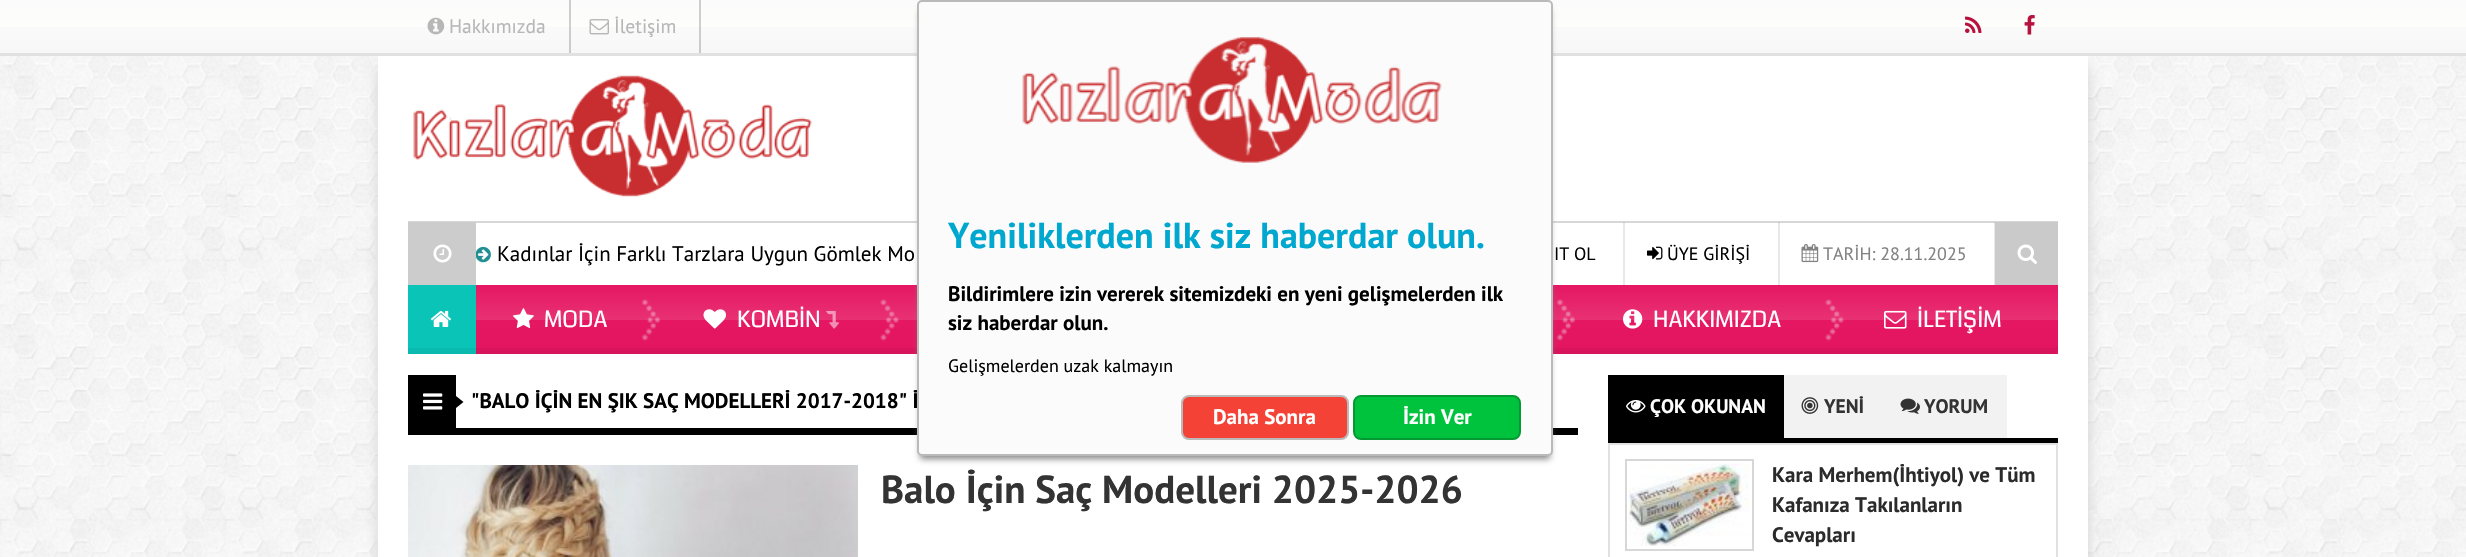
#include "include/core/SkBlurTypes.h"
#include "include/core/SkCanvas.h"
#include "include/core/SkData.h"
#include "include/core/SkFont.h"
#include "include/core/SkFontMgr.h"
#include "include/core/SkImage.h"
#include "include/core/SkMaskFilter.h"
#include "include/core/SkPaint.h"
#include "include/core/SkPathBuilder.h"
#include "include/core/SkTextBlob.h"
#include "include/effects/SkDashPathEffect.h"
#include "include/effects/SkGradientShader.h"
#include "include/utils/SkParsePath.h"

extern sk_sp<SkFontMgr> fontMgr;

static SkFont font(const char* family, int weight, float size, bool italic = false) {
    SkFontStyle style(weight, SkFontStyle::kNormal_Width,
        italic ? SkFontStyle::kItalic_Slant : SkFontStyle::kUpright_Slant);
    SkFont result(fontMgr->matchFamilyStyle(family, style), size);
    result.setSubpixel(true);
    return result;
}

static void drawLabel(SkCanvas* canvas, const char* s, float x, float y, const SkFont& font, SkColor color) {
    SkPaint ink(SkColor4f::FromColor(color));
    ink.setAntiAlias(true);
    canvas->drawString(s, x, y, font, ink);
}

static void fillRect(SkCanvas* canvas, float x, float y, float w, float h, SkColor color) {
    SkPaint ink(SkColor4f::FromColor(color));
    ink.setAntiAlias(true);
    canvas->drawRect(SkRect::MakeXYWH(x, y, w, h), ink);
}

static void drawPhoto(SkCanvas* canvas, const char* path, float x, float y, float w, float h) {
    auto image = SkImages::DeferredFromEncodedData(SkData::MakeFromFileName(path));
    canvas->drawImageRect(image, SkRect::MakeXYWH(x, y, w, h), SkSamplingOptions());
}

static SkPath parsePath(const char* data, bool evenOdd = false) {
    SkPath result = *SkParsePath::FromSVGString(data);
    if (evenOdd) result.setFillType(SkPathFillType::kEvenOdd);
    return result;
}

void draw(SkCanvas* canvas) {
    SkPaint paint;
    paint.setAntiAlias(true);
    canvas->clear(0xFFFFFFFF);
    drawPhoto(canvas, "assets/img1.png", 0, 56, 2466, 501);
    paint.setColor(0xCCC0C0C0);
    paint.setMaskFilter(SkMaskFilter::MakeBlur(kNormal_SkBlurStyle, 7.5f));
    canvas->drawRect(SkRect::MakeXYWH(380, 66, 1689, 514), paint);
    paint.setMaskFilter(nullptr);
    paint.setMaskFilter(SkMaskFilter::MakeBlur(kNormal_SkBlurStyle, 7.5f));
    canvas->drawRect(SkRect::MakeXYWH(398, 66, 1689, 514), paint);
    paint.setMaskFilter(nullptr);
    {
        const SkColor colors[] = {0xFFF7F7F7, 0xFFFAFAFA, 0xFFFDFDFB, 0xFFFBFBFB};
        const float stops[] = {0, 0.5f, 0.5f, 1};
        const SkPoint ends[] = {{1233, 53}, {1233, 0}};
        paint.setShader(SkGradientShader::MakeLinear(ends, colors, stops, 4, SkTileMode::kClamp));
        paint.setAlpha(255);
    }
    canvas->drawRect(SkRect::MakeXYWH(0, 0, 2466, 53), paint);
    fillRect(canvas, 0, 53, 2466, 3, 0xFFE1E1E1);
    fillRect(canvas, 569, 0, 2, 53, 0x2E000000);
    drawPhoto(canvas, "assets/img2.png", 427, 17, 18, 18);
    SkFont font1 = font("PT Sans", 400, 19.5f);
    drawLabel(canvas, "Hakkımızda", 449, 33, font1, 0xFFB7B7B7);
    fillRect(canvas, 699, 0, 2, 53, 0x2E000000);
    drawPhoto(canvas, "assets/img3.png", 589, 19, 20, 16);
    drawLabel(canvas, "İletişim", 614, 33, font1, 0xFFB7B7B7);
    drawPhoto(canvas, "assets/img4.png", 1965, 16, 17, 17);
    drawPhoto(canvas, "assets/img5.png", 2024, 15, 11, 20);
    fillRect(canvas, 378, 56, 1710, 501, 0xFFFFFFFF);
    fillRect(canvas, 408, 221, 1650, 2, 0xFFD8D7D7);
    {
        const SkColor colors[] = {0xFFE31561, 0xFFE51763, 0xFFE83173, 0xFFE51763};
        const float stops[] = {0, 0.5f, 0.5f, 1};
        const SkPoint ends[] = {{1233, 354}, {1233, 285}};
        paint.setShader(SkGradientShader::MakeLinear(ends, colors, stops, 4, SkTileMode::kClamp));
        paint.setAlpha(255);
    }
    canvas->drawRect(SkRect::MakeXYWH(476, 285, 1582, 69), paint);
    fillRect(canvas, 476, 348, 441, 6, 0xFFD8145C);
    drawPhoto(canvas, "assets/img14.png", 1557, 299, 18, 42);
    fillRect(canvas, 1553, 348, 291, 6, 0xFFD8145C);
    fillRect(canvas, 408, 428, 1170, 7, 0xFF000000);
    paint.setShader(nullptr);
    paint.setColor(0xFF888888);
    paint.setMaskFilter(SkMaskFilter::MakeBlur(kNormal_SkBlurStyle, 3));
    canvas->drawRoundRect(SkRect::MakeXYWH(920, 9, 630, 450), 1.5f, 1.5f, paint);
    paint.setMaskFilter(nullptr);
    SkFont font2 = font("PT Sans", 700, 21);
    drawLabel(canvas, "\"BALO İÇİN EN ŞIK SAÇ MODELLERİ 2017-2018\" İ", 471, 408, font2, 0xFF000000);
    paint.setColor(0xFFFBFBFB);
    canvas->drawRoundRect(SkRect::MakeXYWH(918, 1, 634, 454), 4, 4, paint);
    paint.setStroke(true);
    paint.setStrokeWidth(2);
    paint.setColor(0xFFBABABA);
    canvas->drawRoundRect(SkRect::MakeXYWH(918, 1, 634, 454), 4, 4, paint);
    drawPhoto(canvas, "assets/img6.png", 1022, 37, 420, 126);
    SkFont font3 = font("PT Sans", 700, 36);
    drawLabel(canvas, "Yeniliklerden ilk siz haberdar olun.", 948, 248, font3, 0xFF00A7CF);
    drawLabel(canvas, "Bildirimlere izin vererek sitemizdeki en yeni gelişmelerden ilk", 948, 301, font2, 0xFF000000);
    drawLabel(canvas, "siz haberdar olun.", 948, 330, font2, 0xFF000000);
    SkFont font4 = font("PT Sans", 400, 18);
    drawLabel(canvas, "Gelişmelerden uzak kalmayın", 948, 372, font4, 0xFF000000);
    paint.setStroke(false);
    paint.setColor(0xFFF44336);
    canvas->drawRoundRect(SkRect::MakeXYWH(1182, 396, 166, 43), 7, 7, paint);
    paint.setStroke(true);
    paint.setColor(0xFFBABABA);
    canvas->drawRoundRect(SkRect::MakeXYWH(1182, 396, 166, 43), 7, 7, paint);
    drawLabel(canvas, "Daha Sonra", 1213, 424, font2, 0xFFFFFFFF);
    paint.setStroke(false);
    paint.setColor(0xFF00C33D);
    canvas->drawRoundRect(SkRect::MakeXYWH(1354, 396, 166, 43), 7, 7, paint);
    paint.setStroke(true);
    paint.setColor(0xFF059833);
    canvas->drawRoundRect(SkRect::MakeXYWH(1354, 396, 166, 43), 7, 7, paint);
    drawLabel(canvas, "İzin Ver", 1403, 424, font2, 0xFFFFFFFF);
    drawPhoto(canvas, "assets/img7.png", 413, 75, 399, 122);
    fillRect(canvas, 408, 222, 68, 63, 0xFFCCCCCC);
    drawPhoto(canvas, "assets/img8.png", 433, 244, 19, 19);
    drawPhoto(canvas, "assets/img9.png", 476, 246, 15, 17);
    SkFont font5 = font("PT Sans", 400, 21);
    drawLabel(canvas, "Kadınlar İçin Farklı Tarzlara Uygun Gömlek Mo", 497, 261, font5, 0xFF000000);
    fillRect(canvas, 1623, 222, 2, 63, 0x17000000);
    drawLabel(canvas, "IT OL", 1554, 260, font4, 0xFF000000);
    fillRect(canvas, 1778, 222, 2, 63, 0x17000000);
    drawPhoto(canvas, "assets/img10.png", 1647, 246, 16, 14);
    drawLabel(canvas, "ÜYE GİRİŞİ", 1667, 260, font4, 0xFF000000);
    fillRect(canvas, 1994, 222, 1, 63, 0x17000000);
    drawPhoto(canvas, "assets/img11.png", 1801, 244, 18, 19);
    drawLabel(canvas, "TARİH: 28.11.2025", 1823, 260, font4, 0xFF828282);
    fillRect(canvas, 1995, 222, 63, 63, 0xFFCACACA);
    drawPhoto(canvas, "assets/img12.png", 2017, 244, 20, 20);
    fillRect(canvas, 408, 285, 68, 63, 0xFF0BC4B8);
    fillRect(canvas, 408, 348, 68, 6, 0xFF0ABAAF);
    drawPhoto(canvas, "assets/img13.png", 430, 310, 21, 17);
    drawPhoto(canvas, "assets/img14.png", 642, 299, 18, 42);
    drawPhoto(canvas, "assets/img15.png", 513, 308, 21, 20);
    SkFont font6 = font("Coda", 400, 22.5f);
    drawLabel(canvas, "MODA", 544, 327, font6, 0xFFFFFFFF);
    drawPhoto(canvas, "assets/img16.png", 880, 299, 19, 42);
    drawPhoto(canvas, "assets/img17.png", 703, 309, 23, 20);
    drawLabel(canvas, "KOMBİN", 737, 327, font6, 0xFFFFFFFF);
    drawPhoto(canvas, "assets/img18.png", 826, 310, 13, 19);
    paint.setStroke(false);
    paint.setColor(0xFFD8145C);
    canvas->drawPath(parsePath("M1844 348V354H2053C2056 354 2058 352 2058 349V344C2058 346 2056 348 2054 348Z"), paint);
    drawPhoto(canvas, "assets/img19.png", 1884, 310, 23, 19);
    drawLabel(canvas, "İLETİŞİM", 1917, 327, font6, 0xFFFFFFFF);
    drawPhoto(canvas, "assets/img16.png", 1825, 299, 19, 42);
    drawPhoto(canvas, "assets/img20.png", 1623, 309, 20, 20);
    drawLabel(canvas, "HAKKIMIZDA", 1653, 327, font6, 0xFFFFFFFF);
    fillRect(canvas, 408, 375, 48, 53, 0xFF000000);
    drawPhoto(canvas, "assets/img21.png", 423, 393, 20, 17);
    paint.setColor(0xFF000000);
    canvas->drawPath(parsePath("M456 408V396L463.5 402Z"), paint);
    drawPhoto(canvas, "assets/img22.png", 408, 465, 450, 92);
    SkFont font7 = font("PT Sans", 700, 39);
    drawLabel(canvas, "Balo İçin Saç Modelleri 2025-2026", 881, 503, font7, 0xFF333333);
    fillRect(canvas, 1608, 438, 450, 5, 0xFF000000);
    fillRect(canvas, 1608, 375, 176, 63, 0xFF000000);
    drawPhoto(canvas, "assets/img23.png", 1626, 400, 20, 13);
    SkFont font8 = font("PT Sans", 700, 19.5f);
    drawLabel(canvas, "ÇOK OKUNAN", 1650, 413, font8, 0xFFFFFFFF);
    fillRect(canvas, 1784, 375, 223, 63, 0xFFF2F2F2);
    drawPhoto(canvas, "assets/img24.png", 1801, 397, 18, 17);
    drawLabel(canvas, "YENİ", 1824, 413, font8, 0xFF333333);
    drawPhoto(canvas, "assets/img25.png", 1900, 398, 20, 16);
    drawLabel(canvas, "YORUM", 1924, 413, font8, 0xFF333333);
    paint.setStroke(true);
    paint.setColor(0xFFE1E1E1);
    canvas->drawRect(SkRect::MakeXYWH(1609, 444, 448, 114), paint);
    paint.setColor(0xFFD7D7D7);
    canvas->drawRect(SkRect::MakeXYWH(1626, 460, 127, 90), paint);
    drawPhoto(canvas, "assets/img26.png", 1629, 463, 120, 83);
    drawLabel(canvas, "Kara Merhem(İhtiyol) ve Tüm", 1772, 482, font2, 0xFF2B2B2B);
    drawLabel(canvas, "Kafanıza Takılanların", 1772, 512, font2, 0xFF2B2B2B);
    drawLabel(canvas, "Cevapları", 1772, 542, font2, 0xFF2B2B2B);
}
